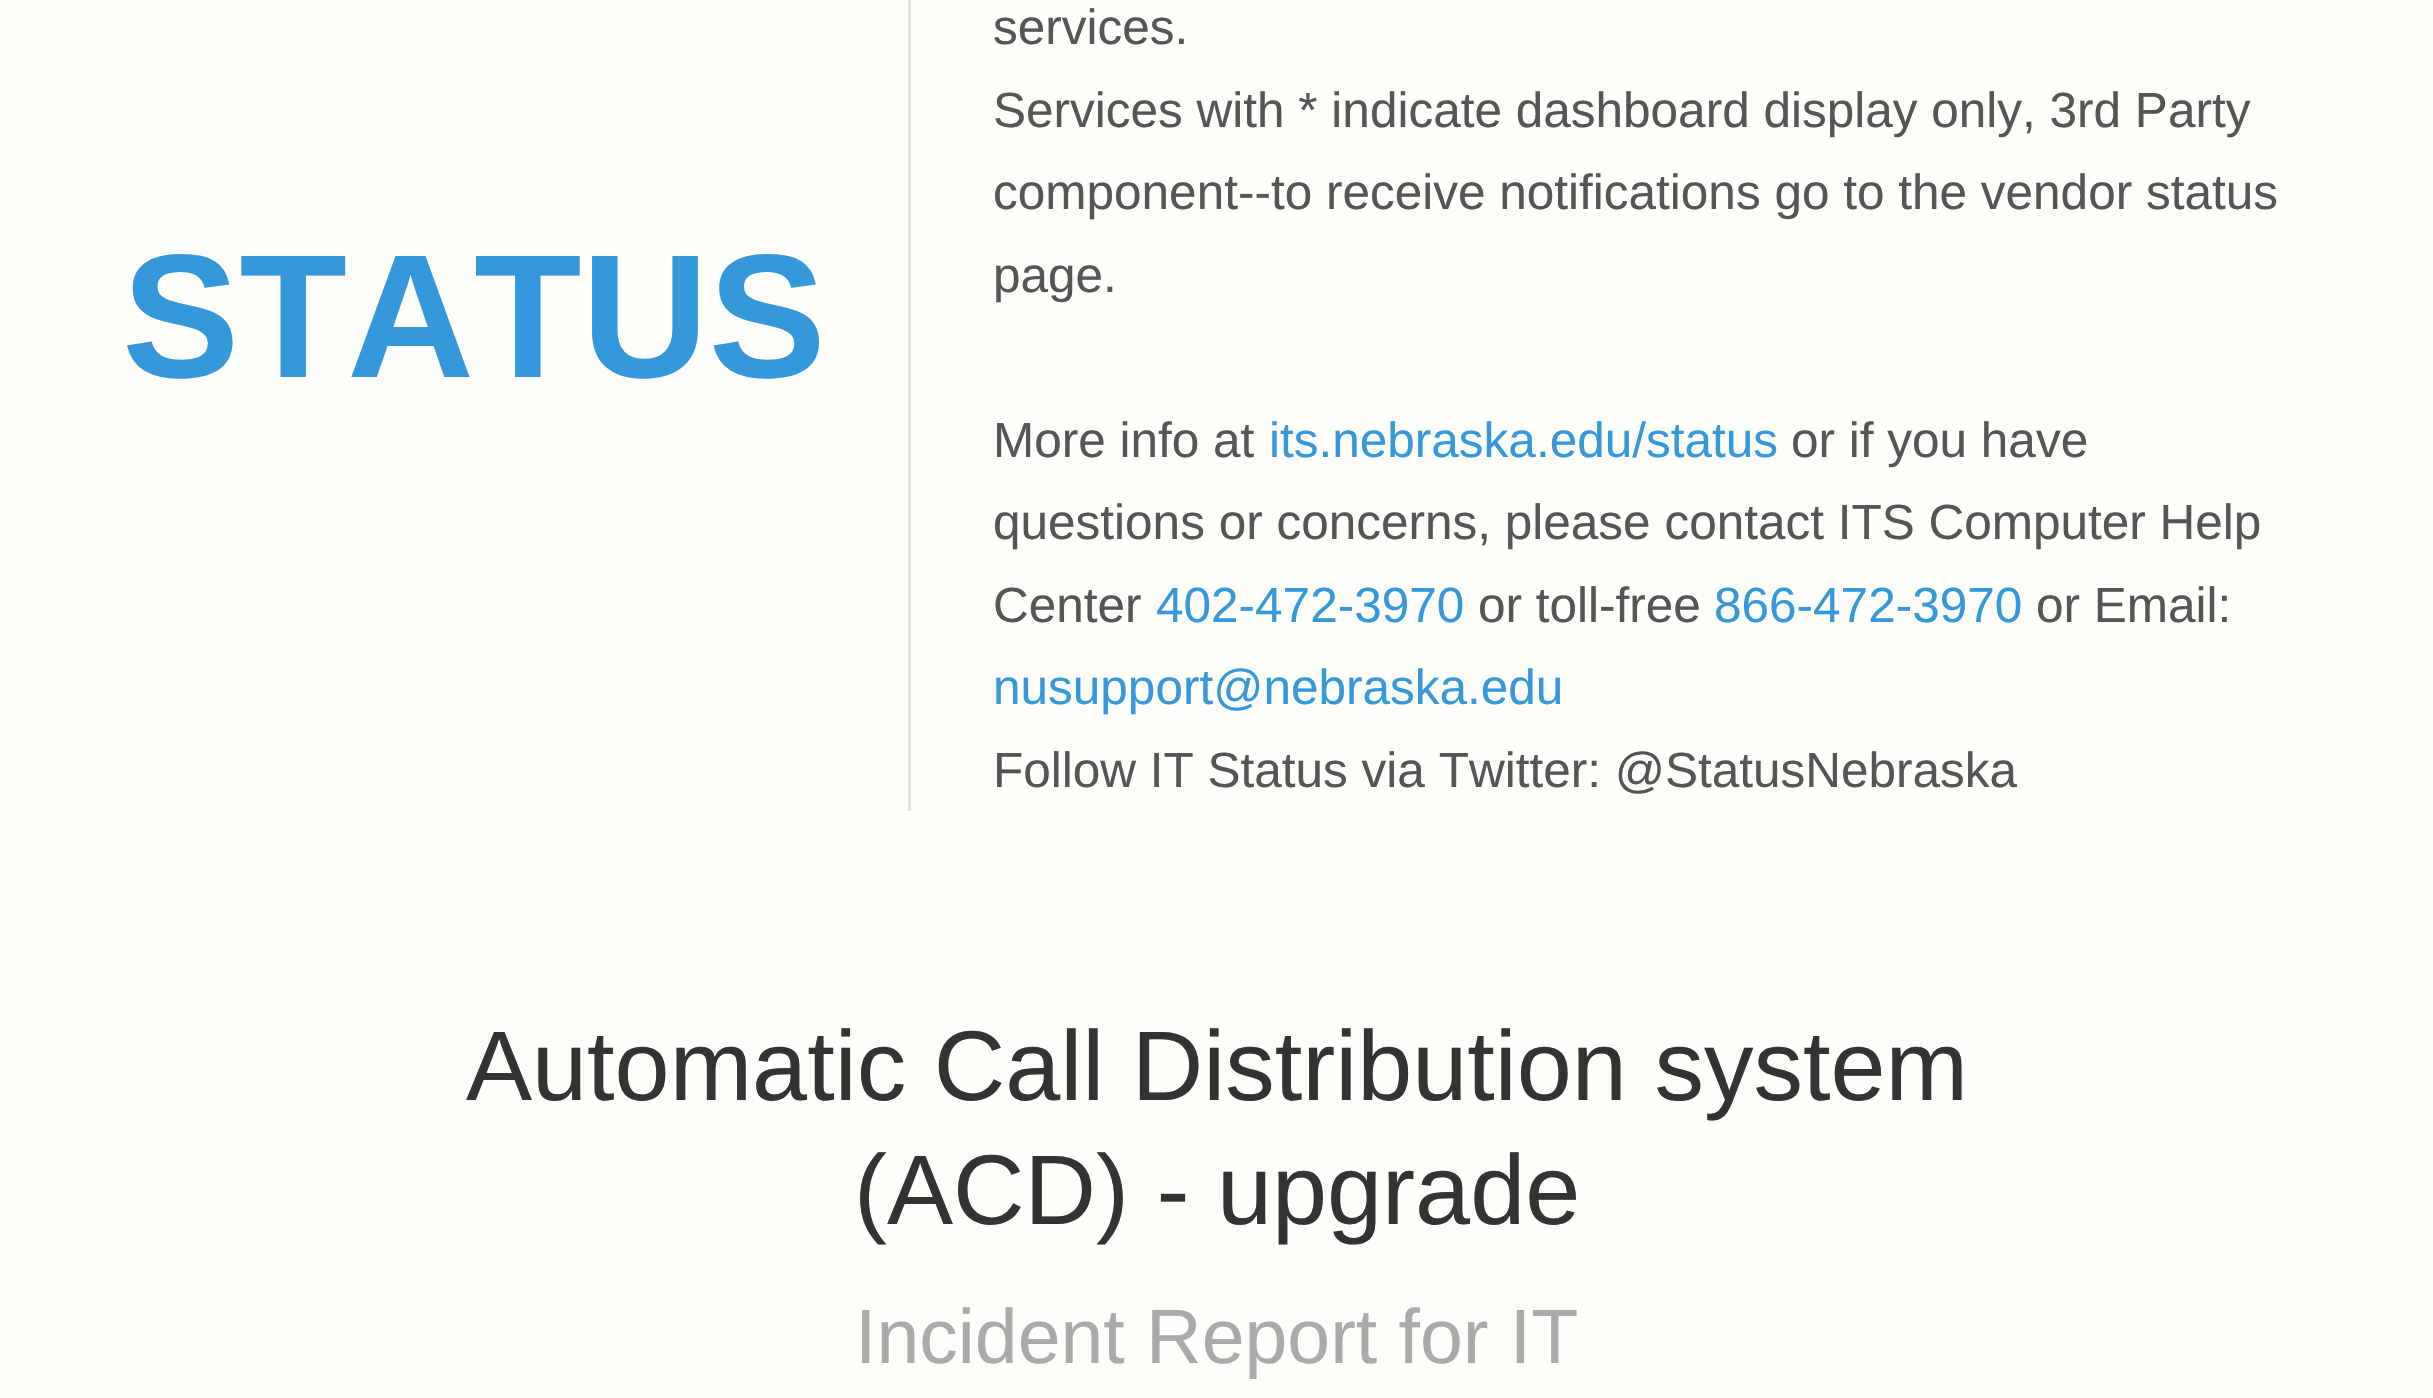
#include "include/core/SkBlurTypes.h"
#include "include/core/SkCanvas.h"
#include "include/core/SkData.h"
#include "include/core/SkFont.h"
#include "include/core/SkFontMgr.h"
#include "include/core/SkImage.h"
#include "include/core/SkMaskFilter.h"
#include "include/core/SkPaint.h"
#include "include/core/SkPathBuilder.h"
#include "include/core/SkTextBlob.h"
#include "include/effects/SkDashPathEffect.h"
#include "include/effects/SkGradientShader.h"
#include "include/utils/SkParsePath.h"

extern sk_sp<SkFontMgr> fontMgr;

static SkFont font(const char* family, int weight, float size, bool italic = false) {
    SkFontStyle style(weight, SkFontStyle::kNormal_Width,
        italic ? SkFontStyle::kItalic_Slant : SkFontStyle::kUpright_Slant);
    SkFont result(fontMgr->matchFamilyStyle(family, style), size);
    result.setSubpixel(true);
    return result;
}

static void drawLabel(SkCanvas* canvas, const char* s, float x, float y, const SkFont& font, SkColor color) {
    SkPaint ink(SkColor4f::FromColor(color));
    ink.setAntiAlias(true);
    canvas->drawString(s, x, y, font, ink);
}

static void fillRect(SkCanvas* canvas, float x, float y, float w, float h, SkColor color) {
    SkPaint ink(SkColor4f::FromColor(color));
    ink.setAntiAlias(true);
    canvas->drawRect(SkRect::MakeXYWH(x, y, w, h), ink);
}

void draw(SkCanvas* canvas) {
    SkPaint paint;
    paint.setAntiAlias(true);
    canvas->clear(0xFFFEFDFA);
    fillRect(canvas, 908, 0, 3, 811, 0xFFE0E0E0);
    SkFont font1 = font("Liberation Sans", 700, 176);
    drawLabel(canvas, "STATUS", 122, 377, font1, 0xFF3498DB);
    SkFont font2 = font("Liberation Sans", 400, 49.5f);
    drawLabel(canvas, "services.", 993, 44, font2, 0xFF555555);
    drawLabel(canvas, "Services with * indicate dashboard display only, 3rd Party", 993, 127, font2, 0xFF555555);
    drawLabel(canvas, "component--to receive notifications go to the vendor status", 993, 209, font2, 0xFF555555);
    drawLabel(canvas, "page.", 993, 292, font2, 0xFF555555);
    drawLabel(canvas, "More info at", 993, 457, font2, 0xFF555555);
    drawLabel(canvas, "its.nebraska.edu/status", 1269, 457, font2, 0xFF3498DB);
    drawLabel(canvas, "or if you have", 1791, 457, font2, 0xFF555555);
    drawLabel(canvas, "questions or concerns, please contact ITS Computer Help", 993, 539, font2, 0xFF555555);
    drawLabel(canvas, "Center", 993, 622, font2, 0xFF555555);
    drawLabel(canvas, "402-472-3970", 1156, 622, font2, 0xFF3498DB);
    drawLabel(canvas, "or toll-free", 1478, 622, font2, 0xFF555555);
    drawLabel(canvas, "866-472-3970", 1714, 622, font2, 0xFF3498DB);
    drawLabel(canvas, "or Email:", 2036, 622, font2, 0xFF555555);
    drawLabel(canvas, "nusupport@nebraska.edu", 993, 704, font2, 0xFF3498DB);
    drawLabel(canvas, "Follow IT Status via Twitter: @StatusNebraska", 993, 787, font2, 0xFF555555);
    SkFont font3 = font("Liberation Sans", 400, 99);
    drawLabel(canvas, "Automatic Call Distribution system", 466, 1100, font3, 0xFF333333);
    drawLabel(canvas, "(ACD) - upgrade", 854, 1224, font3, 0xFF333333);
    SkFont font4 = font("Liberation Sans", 400, 77);
    drawLabel(canvas, "Incident Report for IT", 855, 1363, font4, 0xFFAAAAAA);
}
